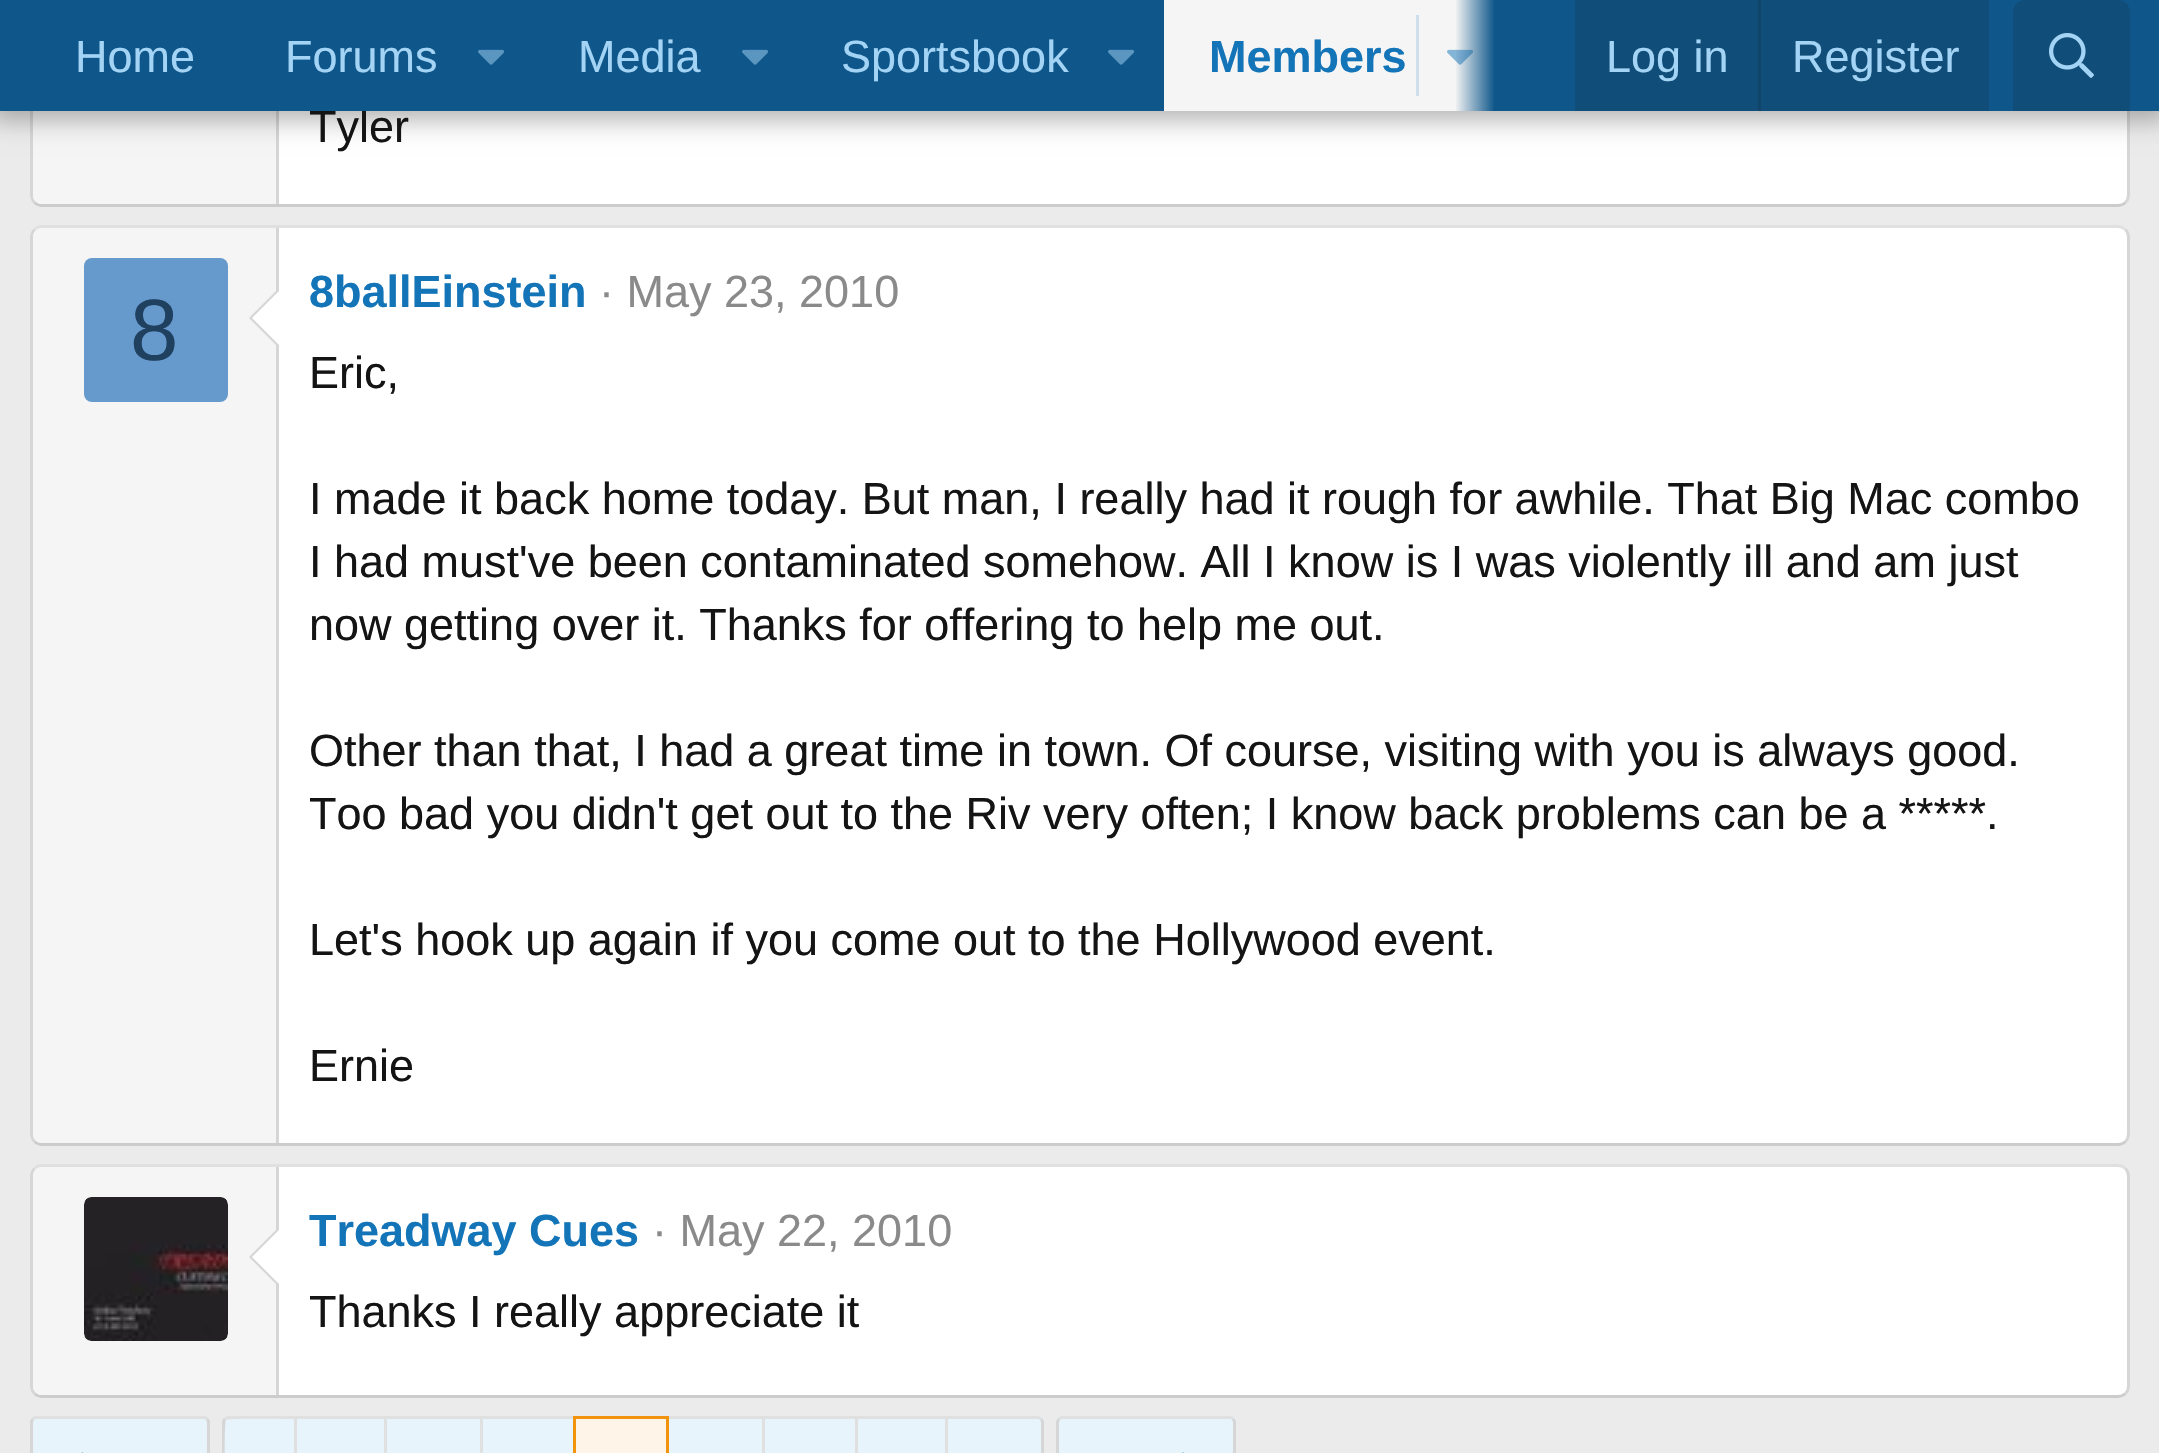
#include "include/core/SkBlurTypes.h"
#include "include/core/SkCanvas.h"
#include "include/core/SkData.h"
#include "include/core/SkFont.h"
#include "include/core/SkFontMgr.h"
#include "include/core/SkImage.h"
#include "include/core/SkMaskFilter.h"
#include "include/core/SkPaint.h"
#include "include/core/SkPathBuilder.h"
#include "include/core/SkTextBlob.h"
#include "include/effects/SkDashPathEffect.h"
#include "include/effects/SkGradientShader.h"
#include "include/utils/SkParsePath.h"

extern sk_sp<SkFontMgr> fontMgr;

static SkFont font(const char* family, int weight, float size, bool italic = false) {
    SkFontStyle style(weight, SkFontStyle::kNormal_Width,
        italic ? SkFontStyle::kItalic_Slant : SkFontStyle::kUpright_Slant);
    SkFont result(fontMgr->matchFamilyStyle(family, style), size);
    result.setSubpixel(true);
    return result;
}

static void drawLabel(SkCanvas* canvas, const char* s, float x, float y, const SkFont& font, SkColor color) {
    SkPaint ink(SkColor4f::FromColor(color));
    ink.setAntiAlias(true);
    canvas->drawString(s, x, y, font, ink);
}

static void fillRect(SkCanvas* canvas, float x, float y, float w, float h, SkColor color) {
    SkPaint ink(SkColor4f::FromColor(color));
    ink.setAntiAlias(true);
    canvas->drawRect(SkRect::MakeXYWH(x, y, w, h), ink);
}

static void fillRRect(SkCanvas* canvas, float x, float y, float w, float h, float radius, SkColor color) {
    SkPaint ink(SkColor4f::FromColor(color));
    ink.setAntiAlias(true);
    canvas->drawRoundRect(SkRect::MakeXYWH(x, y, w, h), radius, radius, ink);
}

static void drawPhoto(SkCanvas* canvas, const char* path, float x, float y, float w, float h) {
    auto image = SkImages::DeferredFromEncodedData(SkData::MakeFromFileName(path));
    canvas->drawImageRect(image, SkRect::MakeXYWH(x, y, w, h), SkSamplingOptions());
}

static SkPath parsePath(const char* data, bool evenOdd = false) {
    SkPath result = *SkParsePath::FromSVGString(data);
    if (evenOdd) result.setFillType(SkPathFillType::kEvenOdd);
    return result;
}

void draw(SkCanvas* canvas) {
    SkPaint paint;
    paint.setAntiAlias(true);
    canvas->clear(0xFFEBEBEB);
    fillRRect(canvas, 30, -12, 2100, 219, 12, 0xFFFFFFFF);
    paint.setStroke(true);
    paint.setStrokeWidth(3);
    paint.setColor(0xFFD6D6D6);
    canvas->drawPath(parsePath("M2125.5-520.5C2127.5-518.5 2128.5-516 2128.5-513V195C2128.5 198 2127.5 200.5 2125.5 202.5"), paint);
    paint.setColor(0xFFCCCCCC);
    canvas->drawPath(parsePath("M2125.5 202.5C2123.5 204.5 2121 205.5 2118 205.5H42C39 205.5 36.5 204.5 34.5 202.5"), paint);
    paint.setColor(0xFFD6D6D6);
    canvas->drawPath(parsePath("M34.5 202.5C32.5 200.5 31.5 198 31.5 195V-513C31.5-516 32.5-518.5 34.5-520.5"), paint);
    paint.setStroke(false);
    paint.setColor(0xFFF5F5F5);
    canvas->drawPath(parsePath("M42-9H279V204H42C37 204 33 200 33 195V0C33-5 37-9 42-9Z"), paint);
    fillRect(canvas, 276, 111, 3, 93, 0xFFD6D6D6);
    paint.setColor(0x4D000000);
    paint.setMaskFilter(SkMaskFilter::MakeBlur(kNormal_SkBlurStyle, 12));
    canvas->drawRect(SkRect::MakeXYWH(-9, -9, 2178, 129), paint);
    paint.setMaskFilter(nullptr);
    SkFont font1 = font("Liberation Sans", 400, 45);
    drawLabel(canvas, "Tyler", 309, 142, font1, 0xFF141414);
    fillRect(canvas, 0, 0, 2159, 111, 0xFF0F578A);
    drawLabel(canvas, "Home", 75, 72, font1, 0xFFA3D4F5);
    drawLabel(canvas, "Forums", 285, 72, font1, 0xFFA3D4F5);
    drawPhoto(canvas, "assets/img1.png", 478, 49, 26, 16);
    drawLabel(canvas, "Media", 578, 72, font1, 0xFFA3D4F5);
    drawPhoto(canvas, "assets/img1.png", 742, 49, 26, 16);
    drawLabel(canvas, "Sportsbook", 841, 72, font1, 0xFFA3D4F5);
    drawPhoto(canvas, "assets/img2.png", 1108, 49, 27, 16);
    fillRect(canvas, 1164, 0, 330, 111, 0xFFF5F5F5);
    SkFont font2 = font("Liberation Sans", 700, 45);
    drawLabel(canvas, "Members", 1209, 72, font2, 0xFF1474B8);
    fillRect(canvas, 1416, 15, 3, 81, 0xFFCEDFEB);
    drawPhoto(canvas, "assets/img3.png", 1447, 49, 26, 16);
    {
        const SkColor colors[] = {0x000F578A, 0xFF0F578A};
        const float stops[] = {0, 0.33f};
        const SkPoint ends[] = {{1455, 56}, {1575, 56}};
        paint.setShader(SkGradientShader::MakeLinear(ends, colors, stops, 2, SkTileMode::kClamp));
        paint.setAlpha(255);
    }
    canvas->drawRect(SkRect::MakeXYWH(1456, 0, 38, 111), paint);
    fillRect(canvas, 1575, 0, 414, 111, 0xFF104D78);
    drawLabel(canvas, "Log in", 1606, 72, font1, 0xFFA3D4F5);
    fillRect(canvas, 1758, 0, 3, 111, 0xFF114469);
    drawLabel(canvas, "Register", 1792, 72, font1, 0xFFA3D4F5);
    paint.setShader(nullptr);
    paint.setColor(0xFF104D78);
    canvas->drawPath(parsePath("M2025 0H2118C2124.5 0 2130 5.5 2130 12V111H2013V12C2013 5.5 2018.5 0 2025 0Z"), paint);
    drawPhoto(canvas, "assets/img4.png", 2049, 33, 45, 45);
    fillRRect(canvas, 30, 225, 2100, 921, 12, 0xFFFFFFFF);
    paint.setStroke(true);
    paint.setColor(0xFFE0E0E0);
    canvas->drawPath(parsePath("M34.5 229.5C36.5 227.5 39 226.5 42 226.5H2118C2121 226.5 2123.5 227.5 2125.5 229.5"), paint);
    paint.setColor(0xFFD6D6D6);
    canvas->drawPath(parsePath("M2125.5 229.5C2127.5 231.5 2128.5 234 2128.5 237V1134C2128.5 1137 2127.5 1139.5 2125.5 1141.5"), paint);
    paint.setColor(0xFFCCCCCC);
    canvas->drawPath(parsePath("M2125.5 1141.5C2123.5 1143.5 2121 1144.5 2118 1144.5H42C39 1144.5 36.5 1143.5 34.5 1141.5"), paint);
    paint.setColor(0xFFD6D6D6);
    canvas->drawPath(parsePath("M34.5 1141.5C32.5 1139.5 31.5 1137 31.5 1134V237C31.5 234 32.5 231.5 34.5 229.5"), paint);
    paint.setStroke(false);
    paint.setColor(0xFFF5F5F5);
    canvas->drawPath(parsePath("M42 228H279V1143H42C37 1143 33 1139 33 1134V237C33 232 37 228 42 228Z"), paint);
    fillRect(canvas, 276, 228, 3, 915, 0xFFD6D6D6);
    fillRRect(canvas, 84, 258, 144, 144, 8, 0xFF6699CC);
    SkFont font3 = font("Liberation Sans", 400, 87);
    drawLabel(canvas, "8", 130, 360, font3, 0xFF204060);
    paint.setColor(0xFFD6D6D6);
    canvas->drawPath(parsePath("M279 288V348L249 318Z"), paint);
    paint.setColor(0xFFFFFFFF);
    canvas->drawPath(parsePath("M279 291V345L252 318Z"), paint);
    drawLabel(canvas, "8ballEinstein", 309, 307, font2, 0xFF1474B8);
    drawLabel(canvas, "· May 23, 2010", 599, 307, font1, 0xFF8A8A8A);
    drawLabel(canvas, "Eric,", 309, 388, font1, 0xFF141414);
    drawLabel(canvas, "I made it back home today. But man, I really had it rough for awhile. That Big Mac combo", 309, 514, font1, 0xFF141414);
    drawLabel(canvas, "I had must've been contaminated somehow. All I know is I was violently ill and am just", 309, 577, font1, 0xFF141414);
    drawLabel(canvas, "now getting over it. Thanks for offering to help me out.", 309, 640, font1, 0xFF141414);
    drawLabel(canvas, "Other than that, I had a great time in town. Of course, visiting with you is always good.", 309, 766, font1, 0xFF141414);
    drawLabel(canvas, "Too bad you didn't get out to the Riv very often; I know back problems can be a *****.", 309, 829, font1, 0xFF141414);
    drawLabel(canvas, "Let's hook up again if you come out to the Hollywood event.", 309, 955, font1, 0xFF141414);
    drawLabel(canvas, "Ernie", 309, 1081, font1, 0xFF141414);
    fillRRect(canvas, 30, 1164, 2100, 234, 12, 0xFFFFFFFF);
    paint.setStroke(true);
    paint.setColor(0xFFE0E0E0);
    canvas->drawPath(parsePath("M34.5 1168.5C36.5 1166.5 39 1165.5 42 1165.5H2118C2121 1165.5 2123.5 1166.5 2125.5 1168.5"), paint);
    paint.setColor(0xFFD6D6D6);
    canvas->drawPath(parsePath("M2125.5 1168.5C2127.5 1170.5 2128.5 1173 2128.5 1176V1386C2128.5 1389 2127.5 1391.5 2125.5 1393.5"), paint);
    paint.setColor(0xFFCCCCCC);
    canvas->drawPath(parsePath("M2125.5 1393.5C2123.5 1395.5 2121 1396.5 2118 1396.5H42C39 1396.5 36.5 1395.5 34.5 1393.5"), paint);
    paint.setColor(0xFFD6D6D6);
    canvas->drawPath(parsePath("M34.5 1393.5C32.5 1391.5 31.5 1389 31.5 1386V1176C31.5 1173 32.5 1170.5 34.5 1168.5"), paint);
    paint.setStroke(false);
    paint.setColor(0xFFF5F5F5);
    canvas->drawPath(parsePath("M42 1167H279V1395H42C37 1395 33 1391 33 1386V1176C33 1171 37 1167 42 1167Z"), paint);
    fillRect(canvas, 276, 1167, 3, 228, 0xFFD6D6D6);
    fillRRect(canvas, 84, 1197, 144, 144, 8, 0xFFFFFFFF);
    drawPhoto(canvas, "assets/img5.png", 84, 1197, 144, 144);
    paint.setColor(0xFFD6D6D6);
    canvas->drawPath(parsePath("M279 1227V1287L249 1257Z"), paint);
    paint.setColor(0xFFFFFFFF);
    canvas->drawPath(parsePath("M279 1230V1284L252 1257Z"), paint);
    drawLabel(canvas, "Treadway Cues", 309, 1246, font2, 0xFF1474B8);
    drawLabel(canvas, "· May 22, 2010", 652, 1246, font1, 0xFF8A8A8A);
    drawLabel(canvas, "Thanks I really appreciate it", 309, 1327, font1, 0xFF141414);
    fillRRect(canvas, 30, 1416, 180, 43, 6, 0xFFE8F4FC);
    paint.setStroke(true);
    paint.setColor(0xFFE0E0E0);
    canvas->drawPath(parsePath("M33 1419C33.5 1418 35 1417.5 36 1417.5H204C205 1417.5 206.5 1418 207 1419"), paint);
    paint.setColor(0xFFD6D6D6);
    canvas->drawPath(parsePath("M207 1419L208.5 1421.5V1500.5L207 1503"), paint);
    canvas->drawPath(parsePath("M33 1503L31.5 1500.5V1421.5L33 1419"), paint);
    drawPhoto(canvas, "assets/img6.png", 81, 1452, 3, 1);
    paint.setStroke(false);
    paint.setColor(0xFFE8F4FC);
    canvas->drawPath(parsePath("M228 1416H294V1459H228C224.5 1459 222 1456.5 222 1453V1422C222 1418.5 224.5 1416 228 1416Z"), paint);
    paint.setColor(0xFFE0E0E0);
    canvas->drawPath(parsePath("M228 1416C226 1416 225 1417 224 1418L226 1420C227 1418 287 1419 294 1419V1416Z"), paint);
    paint.setColor(0xFFD6D6D6);
    canvas->drawPath(parsePath("M222 1422V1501L224 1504L226 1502L225 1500V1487C225 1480 224 1422 226 1420L224 1418C223 1419 222 1420 222 1422Z"), paint);
    fillRect(canvas, 297, 1419, 87, 34, 0xFFE8F4FC);
    fillRect(canvas, 294, 1416, 279, 3, 0xFFE0E0E0);
    fillRect(canvas, 294, 1416, 3, 37, 0xFFE0E0E0);
    fillRect(canvas, 387, 1419, 93, 34, 0xFFE8F4FC);
    fillRect(canvas, 384, 1416, 3, 37, 0xFFE0E0E0);
    fillRect(canvas, 483, 1419, 90, 34, 0xFFE8F4FC);
    fillRect(canvas, 480, 1416, 3, 37, 0xFFE0E0E0);
    paint.setColor(0xFFFEF4E7);
    canvas->drawRect(SkRect::MakeXYWH(574.5f, 1417.5f, 93, 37), paint);
    paint.setStroke(true);
    paint.setColor(0xFFF2930D);
    canvas->drawRect(SkRect::MakeXYWH(574.5f, 1417.5f, 93, 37), paint);
    fillRect(canvas, 669, 1419, 93, 34, 0xFFE8F4FC);
    fillRect(canvas, 669, 1416, 276, 3, 0xFFE0E0E0);
    fillRect(canvas, 765, 1419, 90, 34, 0xFFE8F4FC);
    fillRect(canvas, 762, 1416, 3, 37, 0xFFE0E0E0);
    fillRect(canvas, 858, 1419, 87, 34, 0xFFE8F4FC);
    fillRect(canvas, 855, 1416, 3, 37, 0xFFE0E0E0);
    paint.setStroke(false);
    paint.setColor(0xFFE8F4FC);
    canvas->drawPath(parsePath("M945 1416H1038C1041.5 1416 1044 1418.5 1044 1422V1453C1044 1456.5 1041.5 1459 1038 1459H945Z"), paint);
    paint.setColor(0xFFE0E0E0);
    canvas->drawPath(parsePath("M945 1416L948 1419H1038L1040 1420L1042 1418C1041 1417 1040 1416 1038 1416Z"), paint);
    paint.setColor(0xFFD6D6D6);
    canvas->drawPath(parsePath("M1044 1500V1421L1042 1418L1040 1420L1041 1422V1435C1041 1442 1042 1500 1040 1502L1042 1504C1043 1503 1044 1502 1044 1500Z"), paint);
    paint.setColor(0xFFE0E0E0);
    canvas->drawPath(parsePath("M945 1416V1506L948 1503V1419Z"), paint);
    fillRRect(canvas, 1056, 1416, 180, 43, 6, 0xFFE8F4FC);
    paint.setStroke(true);
    canvas->drawPath(parsePath("M1059 1419C1059.5 1418 1061 1417.5 1062 1417.5H1230C1231 1417.5 1232.5 1418 1233 1419"), paint);
    paint.setColor(0xFFD6D6D6);
    canvas->drawPath(parsePath("M1233 1419L1234.5 1421.5V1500.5L1233 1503"), paint);
    canvas->drawPath(parsePath("M1059 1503L1057.5 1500.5V1421.5L1059 1419"), paint);
    drawPhoto(canvas, "assets/img7.png", 1182, 1452, 2, 1);
}
